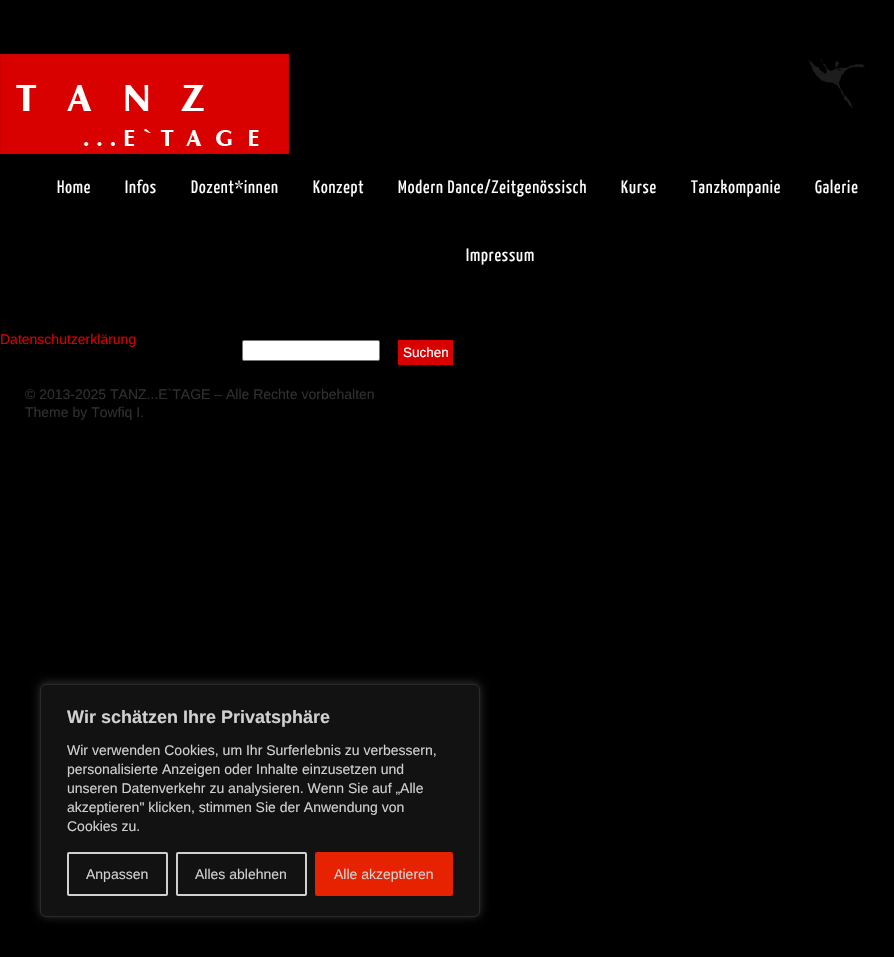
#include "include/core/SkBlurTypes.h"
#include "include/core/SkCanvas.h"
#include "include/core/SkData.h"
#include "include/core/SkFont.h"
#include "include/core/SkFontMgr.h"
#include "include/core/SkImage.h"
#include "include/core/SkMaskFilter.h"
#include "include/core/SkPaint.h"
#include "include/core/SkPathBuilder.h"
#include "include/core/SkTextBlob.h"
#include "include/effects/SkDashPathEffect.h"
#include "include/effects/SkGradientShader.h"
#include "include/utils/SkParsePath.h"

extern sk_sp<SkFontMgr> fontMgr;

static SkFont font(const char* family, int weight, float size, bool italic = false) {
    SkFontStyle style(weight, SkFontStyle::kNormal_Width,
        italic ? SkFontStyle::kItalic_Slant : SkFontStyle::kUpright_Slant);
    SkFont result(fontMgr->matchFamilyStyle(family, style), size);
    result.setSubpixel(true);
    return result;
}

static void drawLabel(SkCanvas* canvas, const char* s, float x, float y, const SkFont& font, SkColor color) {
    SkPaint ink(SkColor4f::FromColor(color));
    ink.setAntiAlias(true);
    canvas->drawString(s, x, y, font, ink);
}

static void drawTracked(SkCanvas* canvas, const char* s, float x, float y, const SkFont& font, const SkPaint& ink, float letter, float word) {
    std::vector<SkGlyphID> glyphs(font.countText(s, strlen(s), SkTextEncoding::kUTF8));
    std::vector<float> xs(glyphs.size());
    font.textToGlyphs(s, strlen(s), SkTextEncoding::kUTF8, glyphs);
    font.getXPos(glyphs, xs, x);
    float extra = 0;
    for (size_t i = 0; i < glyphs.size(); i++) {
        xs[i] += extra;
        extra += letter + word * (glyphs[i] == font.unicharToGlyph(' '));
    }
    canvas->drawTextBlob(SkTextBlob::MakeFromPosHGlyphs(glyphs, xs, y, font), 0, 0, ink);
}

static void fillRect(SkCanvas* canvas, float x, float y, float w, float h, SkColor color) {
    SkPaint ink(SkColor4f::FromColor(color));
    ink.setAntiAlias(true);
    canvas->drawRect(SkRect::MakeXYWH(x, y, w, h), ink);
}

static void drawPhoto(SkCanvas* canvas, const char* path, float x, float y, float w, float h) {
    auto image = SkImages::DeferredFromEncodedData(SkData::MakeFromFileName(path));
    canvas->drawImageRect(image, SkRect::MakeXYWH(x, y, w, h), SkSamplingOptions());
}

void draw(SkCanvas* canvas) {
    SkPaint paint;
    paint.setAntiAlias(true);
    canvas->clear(0xFF000000);
    drawPhoto(canvas, "assets/img1.png", 0, 54, 865, 100);
    SkFont font1 = font("Yanone Kaffeesatz", 400, 18);
    paint.setColor(0xFFFFFFFF);
    drawTracked(canvas, "Home", 57, 193, font1, paint, 0.9f, 0);
    drawTracked(canvas, "Infos", 125, 193, font1, paint, 0.9f, 0);
    drawTracked(canvas, "Dozent*innen", 191, 193, font1, paint, 0.9f, 0);
    drawTracked(canvas, "Konzept", 313, 193, font1, paint, 0.9f, 0);
    drawTracked(canvas, "Modern Dance/Zeitgenössisch", 398, 193, font1, paint, 0.9f, 0);
    drawTracked(canvas, "Kurse", 621, 193, font1, paint, 0.9f, 0);
    drawTracked(canvas, "Tanzkompanie", 691, 193, font1, paint, 0.9f, 0);
    drawTracked(canvas, "Galerie", 815, 193, font1, paint, 0.9f, 0);
    drawTracked(canvas, "Impressum", 466, 261, font1, paint, 0.9f, 0);
    SkFont font2 = font("Liberation Sans", 400, 14);
    drawLabel(canvas, "Datenschutzerklärung", 0, 344, font2, 0xFFD90000);
    canvas->drawRoundRect(SkRect::MakeXYWH(242.5f, 340.5f, 137, 20), 1.5f, 1.5f, paint);
    paint.setStroke(true);
    paint.setStrokeWidth(1);
    paint.setColor(0xFF767676);
    canvas->drawRoundRect(SkRect::MakeXYWH(242.5f, 340.5f, 137, 20), 1.5f, 1.5f, paint);
    fillRect(canvas, 398, 340, 55, 25, 0xFFD90000);
    SkFont font3 = font("Liberation Sans", 400, 13.5f);
    drawLabel(canvas, "Suchen", 403, 357, font3, 0xFFFFFFFF);
    drawLabel(canvas, "© 2013-2025 TANZ...E`TAGE – Alle Rechte vorbehalten", 25, 399, font2, 0xFF302F2F);
    drawLabel(canvas, "Theme by Towfiq I.", 25, 417, font2, 0xFF302F2F);
    paint.setStroke(false);
    paint.setColor(0x4DACABAB);
    paint.setMaskFilter(SkMaskFilter::MakeBlur(kNormal_SkBlurStyle, 5));
    canvas->drawRoundRect(SkRect::MakeXYWH(40, 683, 440, 233), 6, 6, paint);
    paint.setMaskFilter(nullptr);
    paint.setColor(0xFF121212);
    canvas->drawRoundRect(SkRect::MakeXYWH(40.5f, 684.5f, 439, 232), 5.5f, 5.5f, paint);
    paint.setStroke(true);
    paint.setColor(0xFF2A2A2A);
    canvas->drawRoundRect(SkRect::MakeXYWH(40.5f, 684.5f, 439, 232), 5.5f, 5.5f, paint);
    SkFont font4 = font("Liberation Sans", 700, 18);
    drawLabel(canvas, "Wir schätzen Ihre Privatsphäre", 67, 723, font4, 0xFFD0D0D0);
    drawLabel(canvas, "Wir verwenden Cookies, um Ihr Surferlebnis zu verbessern,", 67, 755, font2, 0xFFD0D0D0);
    drawLabel(canvas, "personalisierte Anzeigen oder Inhalte einzusetzen und", 67, 774, font2, 0xFFD0D0D0);
    drawLabel(canvas, "unseren Datenverkehr zu analysieren. Wenn Sie auf „Alle", 67, 793, font2, 0xFFD0D0D0);
    drawLabel(canvas, "akzeptieren\" klicken, stimmen Sie der Anwendung von", 67, 812, font2, 0xFFD0D0D0);
    drawLabel(canvas, "Cookies zu.", 67, 831, font2, 0xFFD0D0D0);
    paint.setStrokeWidth(2);
    paint.setColor(0xFFD0D0D0);
    canvas->drawRoundRect(SkRect::MakeXYWH(68, 853, 99, 42), 1, 1, paint);
    drawLabel(canvas, "Anpassen", 86, 879, font2, 0xFFD0D0D0);
    canvas->drawRoundRect(SkRect::MakeXYWH(177, 853, 129, 42), 1, 1, paint);
    drawLabel(canvas, "Alles ablehnen", 195, 879, font2, 0xFFD0D0D0);
    paint.setStroke(false);
    paint.setColor(0xFFE62200);
    canvas->drawRoundRect(SkRect::MakeXYWH(316, 853, 136, 42), 1, 1, paint);
    paint.setStroke(true);
    canvas->drawRoundRect(SkRect::MakeXYWH(316, 853, 136, 42), 1, 1, paint);
    drawLabel(canvas, "Alle akzeptieren", 334, 879, font2, 0xFFD0D0D0);
}
